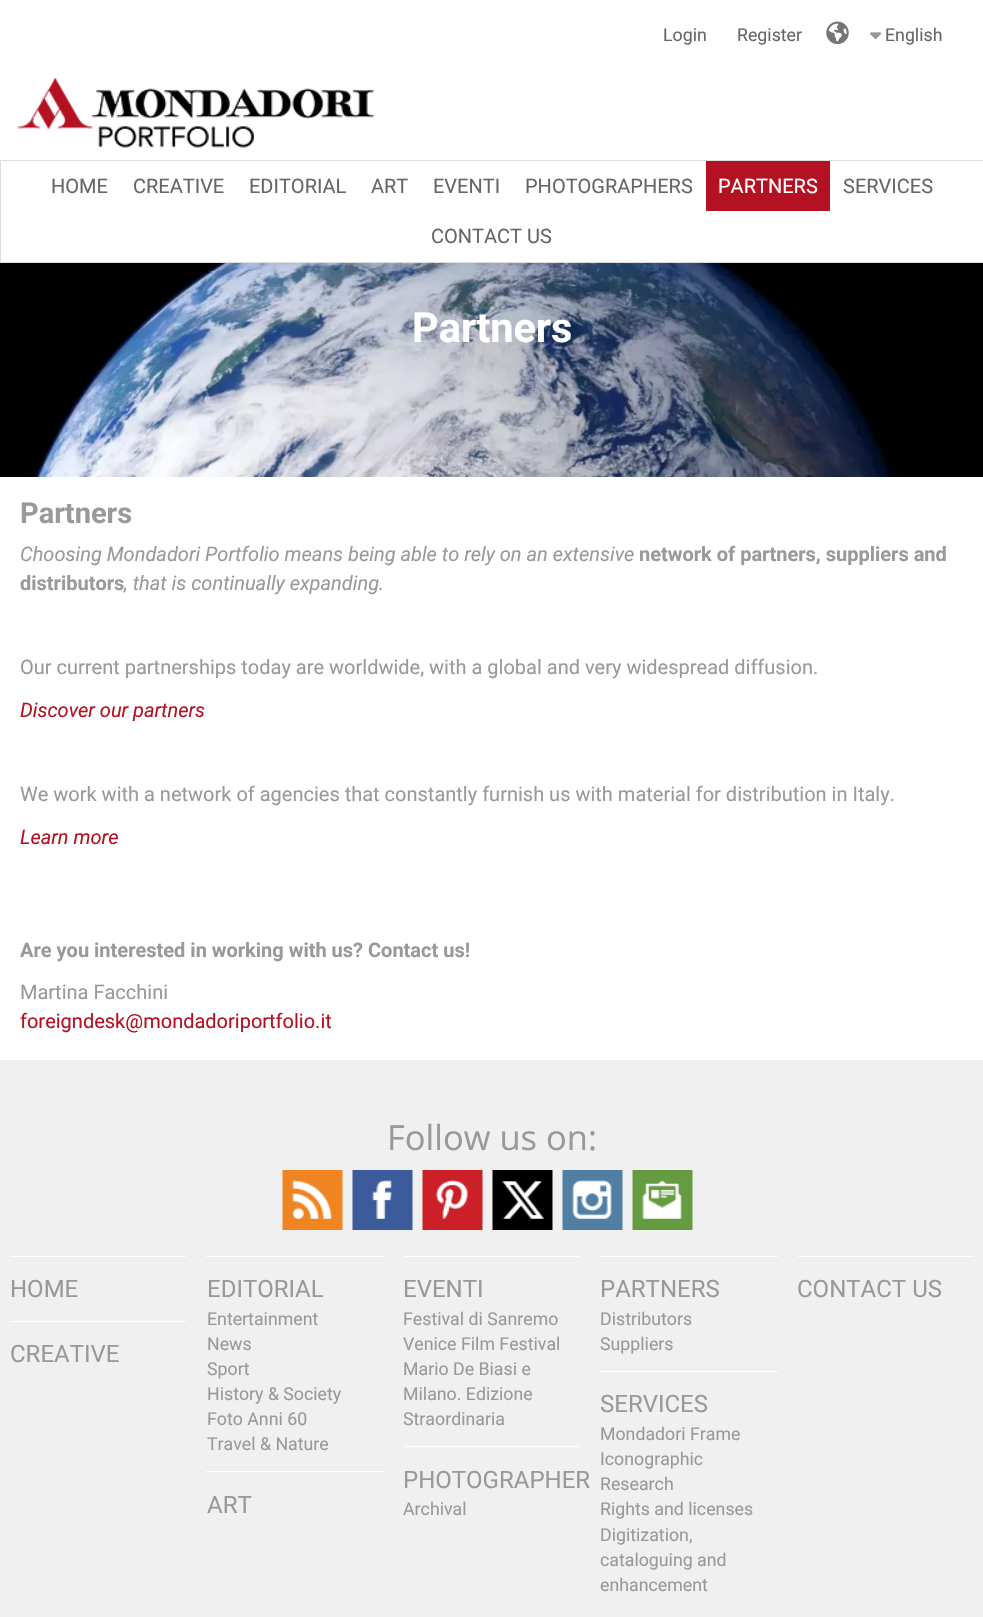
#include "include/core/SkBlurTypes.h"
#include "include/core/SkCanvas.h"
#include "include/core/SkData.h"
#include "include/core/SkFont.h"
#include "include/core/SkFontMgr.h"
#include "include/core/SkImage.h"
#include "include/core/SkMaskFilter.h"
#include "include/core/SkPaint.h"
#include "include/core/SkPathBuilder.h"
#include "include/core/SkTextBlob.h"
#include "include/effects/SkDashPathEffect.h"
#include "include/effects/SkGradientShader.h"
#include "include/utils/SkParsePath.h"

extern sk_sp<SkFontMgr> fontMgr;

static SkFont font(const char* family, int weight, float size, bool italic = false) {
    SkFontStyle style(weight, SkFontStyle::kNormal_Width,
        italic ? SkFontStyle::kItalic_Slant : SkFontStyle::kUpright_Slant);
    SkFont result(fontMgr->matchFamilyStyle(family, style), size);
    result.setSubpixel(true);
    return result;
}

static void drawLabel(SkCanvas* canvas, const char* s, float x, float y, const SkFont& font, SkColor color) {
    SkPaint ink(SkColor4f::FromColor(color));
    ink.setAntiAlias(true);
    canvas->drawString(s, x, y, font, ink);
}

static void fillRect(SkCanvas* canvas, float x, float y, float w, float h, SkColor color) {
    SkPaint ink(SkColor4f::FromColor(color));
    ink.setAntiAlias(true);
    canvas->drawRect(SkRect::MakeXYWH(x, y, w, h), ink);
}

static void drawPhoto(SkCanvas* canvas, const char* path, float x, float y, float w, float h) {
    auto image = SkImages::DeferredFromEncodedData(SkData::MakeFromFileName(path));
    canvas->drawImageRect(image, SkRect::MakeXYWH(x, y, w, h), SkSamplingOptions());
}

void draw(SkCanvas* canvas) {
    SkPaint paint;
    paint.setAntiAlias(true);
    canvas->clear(0xFFFFFFFF);
    SkFont font1 = font("Roboto", 400, 17.75f);
    drawLabel(canvas, "Login", 663, 41, font1, 0xFF666666);
    drawLabel(canvas, "Register", 737, 41, font1, 0xFF666666);
    drawPhoto(canvas, "assets/img1.png", 826, 21, 23, 24);
    drawPhoto(canvas, "assets/img2.png", 870, 32, 12, 7);
    drawLabel(canvas, "English", 885, 41, font1, 0xFF666666);
    drawPhoto(canvas, "assets/img3.png", 17, 77, 357, 71);
    paint.setStroke(true);
    paint.setStrokeWidth(1);
    paint.setColor(0xFFDDDDDD);
    canvas->drawRect(SkRect::MakeXYWH(0.5f, 160.5f, 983, 102), paint);
    SkFont font2 = font("Roboto", 400, 20);
    drawLabel(canvas, "HOME", 51, 193, font2, 0xFF666666);
    drawLabel(canvas, "CREATIVE", 133, 193, font2, 0xFF666666);
    drawLabel(canvas, "EDITORIAL", 249, 193, font2, 0xFF666666);
    drawLabel(canvas, "ART", 371, 193, font2, 0xFF666666);
    drawLabel(canvas, "EVENTI", 433, 193, font2, 0xFF666666);
    drawLabel(canvas, "PHOTOGRAPHERS", 525, 193, font2, 0xFF666666);
    fillRect(canvas, 706, 161, 124, 50, 0xFFB41223);
    drawLabel(canvas, "PARTNERS", 718, 193, font2, 0xFFFFFFFF);
    drawLabel(canvas, "SERVICES", 843, 193, font2, 0xFF666666);
    drawLabel(canvas, "CONTACT US", 431, 243, font2, 0xFF666666);
    drawPhoto(canvas, "assets/img4.png", 0, 263, 983, 214);
    SkFont font3 = font("Roboto", 700, 41.5f);
    drawLabel(canvas, "Partners", 412, 342, font3, 0xFFFFFFFF);
    SkFont font4 = font("Roboto", 700, 29);
    drawLabel(canvas, "Partners", 20, 523, font4, 0xFF999999);
    SkFont font5 = font("Roboto", 400, 20, true);
    drawLabel(canvas, "Choosing Mondadori Portfolio means being able to rely on an extensive", 20, 561, font5, 0xFF999999);
    SkFont font6 = font("Roboto", 700, 20);
    drawLabel(canvas, "network of partners, suppliers and", 639, 561, font6, 0xFF999999);
    drawLabel(canvas, "distributors", 20, 590, font6, 0xFF999999);
    drawLabel(canvas, ", that is continually expanding.", 124, 590, font5, 0xFF999999);
    drawLabel(canvas, "Our current partnerships today are worldwide, with a global and very widespread diffusion.", 20, 674, font2, 0xFF999999);
    drawLabel(canvas, "Discover our partners", 20, 717, font5, 0xFFB41223);
    drawLabel(canvas, "We work with a network of agencies that constantly furnish us with material for distribution in Italy.", 20, 801, font2, 0xFF999999);
    drawLabel(canvas, "Learn more", 20, 844, font5, 0xFFB41223);
    drawLabel(canvas, "Are you interested in working with us? Contact us!", 20, 957, font6, 0xFF999999);
    drawLabel(canvas, "Martina Facchini", 20, 999, font2, 0xFF999999);
    drawLabel(canvas, "foreigndesk@mondadoriportfolio.it", 20, 1028, font2, 0xFFB41223);
    fillRect(canvas, 0, 1060, 983, 557, 0xFFF0F0F0);
    SkFont font7 = font("Open Sans", 400, 34.5f);
    drawLabel(canvas, "Follow us on:", 387, 1150, font7, 0xFF999999);
    drawPhoto(canvas, "assets/img5.png", 282, 1170, 61, 60);
    drawPhoto(canvas, "assets/img6.png", 352, 1170, 61, 60);
    drawPhoto(canvas, "assets/img7.png", 422, 1170, 61, 60);
    drawPhoto(canvas, "assets/img8.png", 492, 1170, 61, 60);
    drawPhoto(canvas, "assets/img9.png", 562, 1170, 61, 60);
    drawPhoto(canvas, "assets/img10.png", 632, 1170, 61, 60);
    fillRect(canvas, 10, 1256, 176, 1, 0xFFFFFFFF);
    SkFont font8 = font("Roboto", 400, 24);
    drawLabel(canvas, "HOME", 10, 1297, font8, 0xFF999999);
    fillRect(canvas, 10, 1321, 176, 1, 0xFFFFFFFF);
    drawLabel(canvas, "CREATIVE", 10, 1362, font8, 0xFF999999);
    fillRect(canvas, 206, 1256, 178, 1, 0xFFFFFFFF);
    drawLabel(canvas, "EDITORIAL", 207, 1297, font8, 0xFF999999);
    drawLabel(canvas, "Entertainment", 207, 1325, font1, 0xFF999999);
    drawLabel(canvas, "News", 207, 1350, font1, 0xFF999999);
    drawLabel(canvas, "Sport", 207, 1375, font1, 0xFF999999);
    drawLabel(canvas, "History & Society", 207, 1400, font1, 0xFF999999);
    drawLabel(canvas, "Foto Anni 60", 207, 1425, font1, 0xFF999999);
    drawLabel(canvas, "Travel & Nature", 207, 1450, font1, 0xFF999999);
    fillRect(canvas, 206, 1471, 178, 1, 0xFFFFFFFF);
    drawLabel(canvas, "ART", 207, 1513, font8, 0xFF999999);
    fillRect(canvas, 404, 1256, 176, 1, 0xFFFFFFFF);
    drawLabel(canvas, "EVENTI", 403, 1297, font8, 0xFF999999);
    drawLabel(canvas, "Festival di Sanremo", 403, 1325, font1, 0xFF999999);
    drawLabel(canvas, "Venice Film Festival", 403, 1350, font1, 0xFF999999);
    drawLabel(canvas, "Mario De Biasi e", 403, 1375, font1, 0xFF999999);
    drawLabel(canvas, "Milano. Edizione", 403, 1400, font1, 0xFF999999);
    drawLabel(canvas, "Straordinaria", 403, 1425, font1, 0xFF999999);
    fillRect(canvas, 404, 1446, 176, 1, 0xFFFFFFFF);
    drawLabel(canvas, "PHOTOGRAPHER", 403, 1488, font8, 0xFF999999);
    drawLabel(canvas, "Archival", 403, 1515, font1, 0xFF999999);
    fillRect(canvas, 600, 1256, 178, 1, 0xFFFFFFFF);
    drawLabel(canvas, "PARTNERS", 600, 1297, font8, 0xFF999999);
    drawLabel(canvas, "Distributors", 600, 1325, font1, 0xFF999999);
    drawLabel(canvas, "Suppliers", 600, 1350, font1, 0xFF999999);
    fillRect(canvas, 600, 1371, 178, 1, 0xFFFFFFFF);
    drawLabel(canvas, "SERVICES", 600, 1412, font8, 0xFF999999);
    drawLabel(canvas, "Mondadori Frame", 600, 1440, font1, 0xFF999999);
    drawLabel(canvas, "Iconographic", 600, 1465, font1, 0xFF999999);
    drawLabel(canvas, "Research", 600, 1490, font1, 0xFF999999);
    drawLabel(canvas, "Rights and licenses", 600, 1515, font1, 0xFF999999);
    drawLabel(canvas, "Digitization,", 600, 1541, font1, 0xFF999999);
    drawLabel(canvas, "cataloguing and", 600, 1566, font1, 0xFF999999);
    drawLabel(canvas, "enhancement", 600, 1591, font1, 0xFF999999);
    fillRect(canvas, 798, 1256, 176, 1, 0xFFFFFFFF);
    drawLabel(canvas, "CONTACT US", 797, 1297, font8, 0xFF999999);
}
